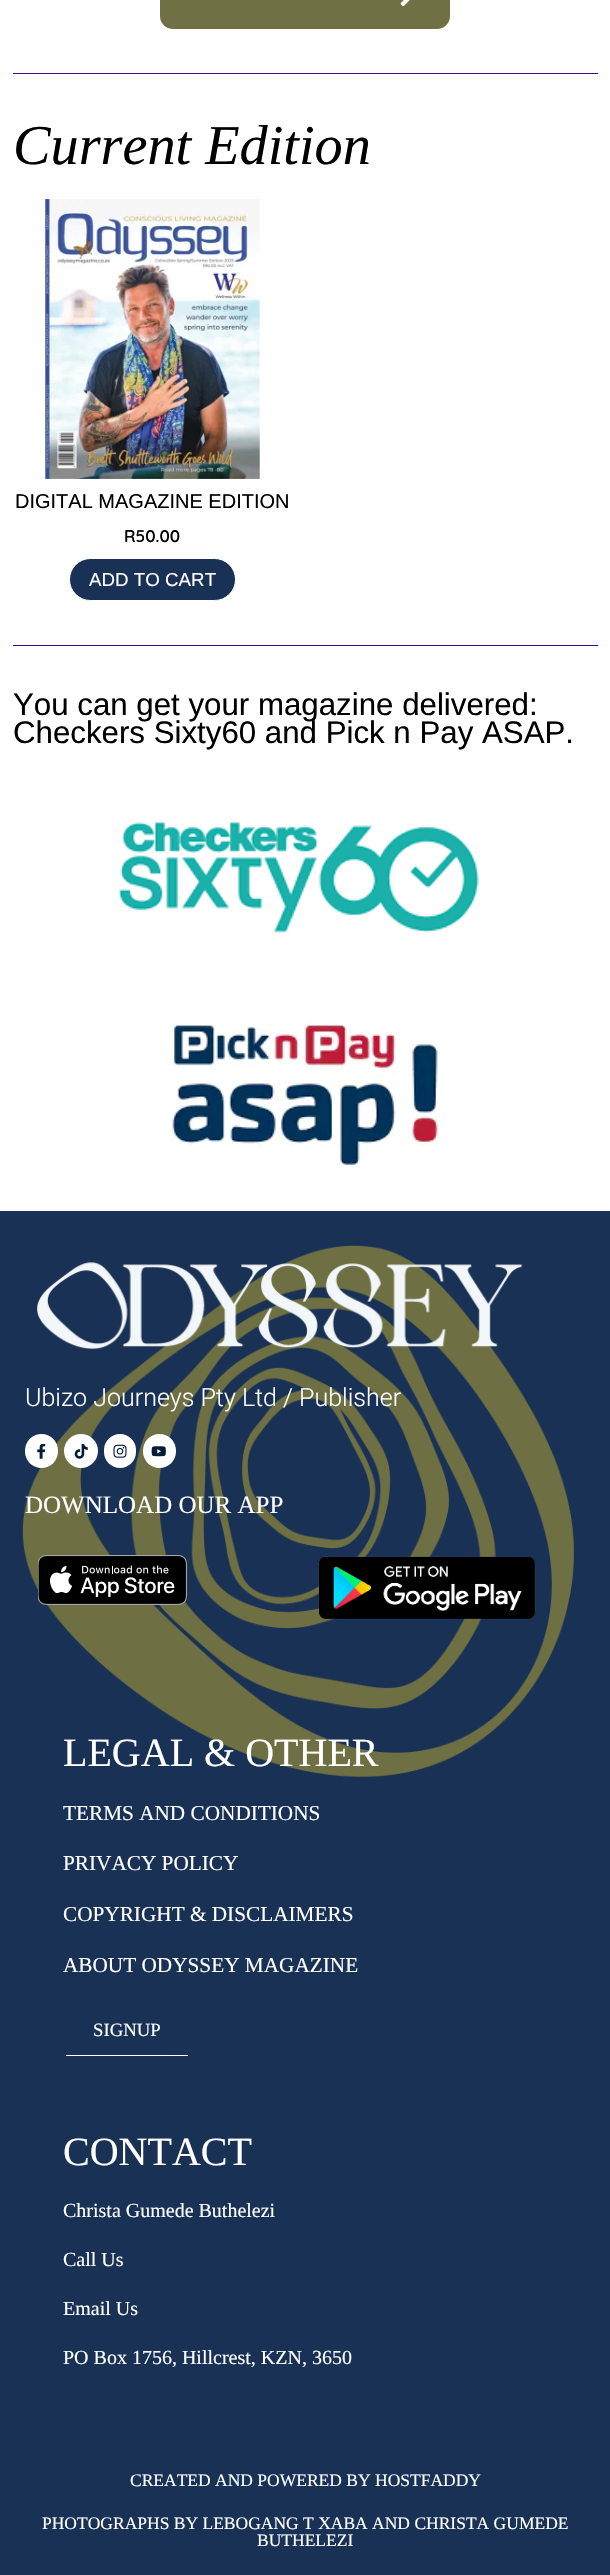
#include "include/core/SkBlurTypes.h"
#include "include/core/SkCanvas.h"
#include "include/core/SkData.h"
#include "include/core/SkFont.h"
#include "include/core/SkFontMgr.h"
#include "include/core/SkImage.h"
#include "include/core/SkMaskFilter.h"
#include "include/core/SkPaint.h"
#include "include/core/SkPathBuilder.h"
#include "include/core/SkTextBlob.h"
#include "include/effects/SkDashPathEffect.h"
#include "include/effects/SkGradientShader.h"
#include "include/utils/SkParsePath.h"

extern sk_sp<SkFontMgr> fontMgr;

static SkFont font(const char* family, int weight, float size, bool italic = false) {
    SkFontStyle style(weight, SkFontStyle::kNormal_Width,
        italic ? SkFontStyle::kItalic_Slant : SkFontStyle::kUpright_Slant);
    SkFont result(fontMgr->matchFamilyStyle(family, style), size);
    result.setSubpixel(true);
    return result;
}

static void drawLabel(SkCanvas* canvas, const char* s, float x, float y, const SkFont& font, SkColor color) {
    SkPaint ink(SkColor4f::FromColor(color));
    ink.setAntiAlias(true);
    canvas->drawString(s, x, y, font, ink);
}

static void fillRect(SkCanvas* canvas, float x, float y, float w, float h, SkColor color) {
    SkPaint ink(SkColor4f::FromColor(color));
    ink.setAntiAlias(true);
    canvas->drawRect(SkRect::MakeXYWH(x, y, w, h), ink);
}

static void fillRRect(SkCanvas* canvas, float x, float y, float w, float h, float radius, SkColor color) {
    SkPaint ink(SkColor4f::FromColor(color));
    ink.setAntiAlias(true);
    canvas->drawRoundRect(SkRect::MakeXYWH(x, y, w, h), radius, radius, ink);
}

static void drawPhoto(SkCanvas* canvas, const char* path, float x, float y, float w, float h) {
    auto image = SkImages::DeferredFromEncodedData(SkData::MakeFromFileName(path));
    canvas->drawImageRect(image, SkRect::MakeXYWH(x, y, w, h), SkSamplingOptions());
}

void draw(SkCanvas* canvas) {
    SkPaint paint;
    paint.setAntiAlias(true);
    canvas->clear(0xFFFFFFFF);
    fillRRect(canvas, 160, -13, 290, 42, 13, 0xFF6F7043);
    drawPhoto(canvas, "assets/img1.png", 400, 0, 10, 7);
    fillRect(canvas, 13, 73, 585, 1, 0xFF460094);
    SkFont font1 = font("Liberation Serif", 400, 56.25f, true);
    drawLabel(canvas, "Current Edition", 13, 164, font1, 0xFF000000);
    drawPhoto(canvas, "assets/img2.png", 44, 199, 216, 280);
    SkFont font2 = font("Liberation Sans", 400, 20);
    drawLabel(canvas, "DIGITAL MAGAZINE EDITION", 15, 508, font2, 0xFF000000);
    SkFont font3 = font("Quicksand", 600, 17);
    drawLabel(canvas, "R50.00", 124, 542, font3, 0xFF000000);
    paint.setColor(0xFF193155);
    canvas->drawRoundRect(SkRect::MakeXYWH(69.5f, 558.5f, 166, 42), 21, 21, paint);
    paint.setStroke(true);
    paint.setStrokeWidth(1);
    paint.setColor(0xFFFFFFFF);
    canvas->drawRoundRect(SkRect::MakeXYWH(69.5f, 558.5f, 166, 42), 21, 21, paint);
    SkFont font4 = font("Liberation Sans", 400, 18.75f);
    drawLabel(canvas, "ADD TO CART", 89, 586, font4, 0xFFFFFFFF);
    fillRect(canvas, 13, 645, 585, 1, 0xFF460094);
    SkFont font5 = font("Liberation Sans", 400, 31.25f);
    drawLabel(canvas, "You can get your magazine delivered:", 13, 715, font5, 0xFF000000);
    drawLabel(canvas, "Checkers Sixty60 and Pick n Pay ASAP.", 13, 743, font5, 0xFF000000);
    drawPhoto(canvas, "assets/img3.png", 118, 822, 361, 111);
    drawPhoto(canvas, "assets/img4.png", 166, 1019, 277, 150);
    fillRect(canvas, 0, 1211, 610, 1364, 0xFF193155);
    drawPhoto(canvas, "assets/img5.png", 22, 1245, 552, 532);
    drawPhoto(canvas, "assets/img6.png", 37, 1262, 486, 88);
    SkFont font6 = font("Roboto", 300, 25);
    drawLabel(canvas, "Ubizo Journeys Pty Ltd / Publisher", 25, 1406, font6, 0xFFFFFFFF);
    fillRRect(canvas, 25, 1434, 33, 34, 16.5f, 0xFFFFFFFF);
    drawPhoto(canvas, "assets/img7.png", 37, 1444, 9, 15);
    paint.setStroke(false);
    canvas->drawCircle(81, 1451, 17, paint);
    drawPhoto(canvas, "assets/img8.png", 74, 1444, 14, 15);
    fillRRect(canvas, 104, 1434, 32, 34, 16, 0xFFFFFFFF);
    drawPhoto(canvas, "assets/img9.png", 113, 1444, 14, 14);
    fillRRect(canvas, 143, 1434, 33, 34, 16.5f, 0xFFFFFFFF);
    drawPhoto(canvas, "assets/img10.png", 151, 1446, 15, 11);
    SkFont font7 = font("Liberation Serif", 400, 25);
    drawLabel(canvas, "DOWNLOAD OUR APP", 25, 1513, font7, 0xFFFFFFFF);
    drawPhoto(canvas, "assets/img11.png", 38, 1555, 150, 50);
    drawPhoto(canvas, "assets/img12.png", 318, 1556, 218, 64);
    SkFont font8 = font("Liberation Serif", 400, 40);
    drawLabel(canvas, "LEGAL & OTHER", 63, 1766, font8, 0xFFFFFFFF);
    SkFont font9 = font("Liberation Serif", 400, 21.25f);
    drawLabel(canvas, "TERMS AND CONDITIONS", 63, 1820, font9, 0xFFFFFFFF);
    drawLabel(canvas, "PRIVACY POLICY", 63, 1870, font9, 0xFFFFFFFF);
    drawLabel(canvas, "COPYRIGHT & DISCLAIMERS", 63, 1921, font9, 0xFFFFFFFF);
    drawLabel(canvas, "ABOUT ODYSSEY MAGAZINE", 63, 1972, font9, 0xFFFFFFFF);
    fillRect(canvas, 66, 2055, 122, 1, 0xFFFFFFFF);
    SkFont font10 = font("Liberation Serif", 400, 18.75f);
    drawLabel(canvas, "SIGNUP", 93, 2036, font10, 0xFFFFFFFF);
    drawLabel(canvas, "CONTACT", 63, 2165, font8, 0xFFFFFFFF);
    SkFont font11 = font("Liberation Serif", 400, 20);
    drawLabel(canvas, "Christa Gumede Buthelezi", 63, 2217, font11, 0xFFFFFFFF);
    drawLabel(canvas, "Call Us", 63, 2266, font11, 0xFFFFFFFF);
    drawLabel(canvas, "Email Us", 63, 2315, font11, 0xFFFFFFFF);
    drawLabel(canvas, "PO Box 1756, Hillcrest, KZN, 3650", 63, 2364, font11, 0xFFFFFFFF);
    SkFont font12 = font("Liberation Serif", 400, 17.5f);
    drawLabel(canvas, "CREATED AND POWERED BY HOSTFADDY", 130, 2486, font12, 0xFFFFFFFF);
    drawLabel(canvas, "PHOTOGRAPHS BY LEBOGANG T XABA AND CHRISTA GUMEDE", 42, 2529, font12, 0xFFFFFFFF);
    drawLabel(canvas, "BUTHELEZI", 257, 2546, font12, 0xFFFFFFFF);
}
